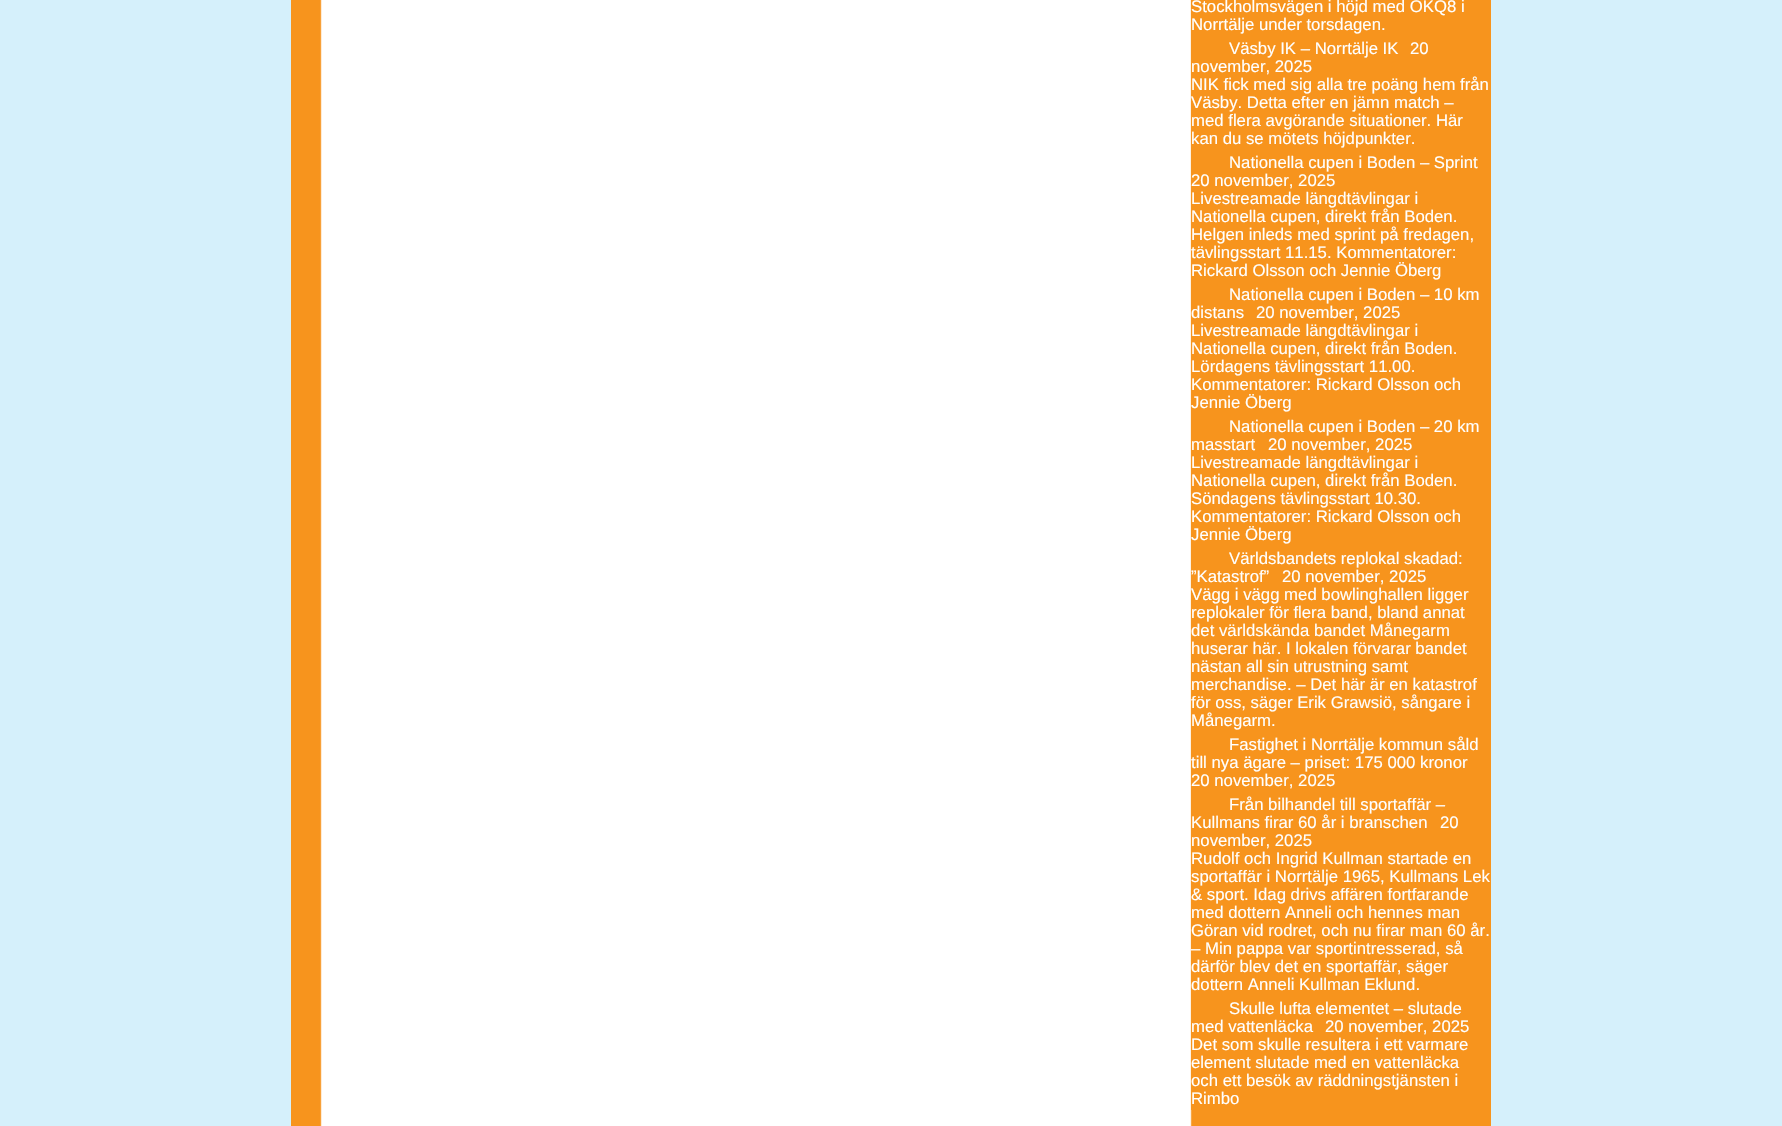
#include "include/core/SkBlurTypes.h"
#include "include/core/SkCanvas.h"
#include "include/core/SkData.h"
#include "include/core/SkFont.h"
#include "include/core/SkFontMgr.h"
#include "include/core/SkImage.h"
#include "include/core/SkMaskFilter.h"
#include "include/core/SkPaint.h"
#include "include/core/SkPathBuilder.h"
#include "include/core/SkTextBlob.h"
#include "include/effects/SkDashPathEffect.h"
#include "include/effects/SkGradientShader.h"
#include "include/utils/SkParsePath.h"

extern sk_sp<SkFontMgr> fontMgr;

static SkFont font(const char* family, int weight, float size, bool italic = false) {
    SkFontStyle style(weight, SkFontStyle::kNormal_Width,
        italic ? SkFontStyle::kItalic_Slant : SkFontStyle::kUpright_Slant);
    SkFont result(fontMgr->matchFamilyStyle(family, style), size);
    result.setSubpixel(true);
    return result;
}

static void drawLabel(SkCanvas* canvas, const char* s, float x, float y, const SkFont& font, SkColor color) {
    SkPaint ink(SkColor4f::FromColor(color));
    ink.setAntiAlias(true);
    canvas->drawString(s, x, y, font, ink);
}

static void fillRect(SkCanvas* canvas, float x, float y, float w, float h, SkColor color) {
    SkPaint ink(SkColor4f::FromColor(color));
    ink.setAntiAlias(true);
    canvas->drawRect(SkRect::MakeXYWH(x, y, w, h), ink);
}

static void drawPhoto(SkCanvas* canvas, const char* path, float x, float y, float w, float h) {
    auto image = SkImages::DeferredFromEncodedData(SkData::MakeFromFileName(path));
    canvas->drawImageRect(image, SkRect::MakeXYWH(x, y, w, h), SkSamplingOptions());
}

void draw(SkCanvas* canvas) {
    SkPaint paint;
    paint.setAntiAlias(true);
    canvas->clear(0xFFD5F0FB);
    fillRect(canvas, 291, 0, 1200, 1126, 0xFFF7941D);
    drawPhoto(canvas, "assets/img1.png", 320, 0, 872, 1126);
    fillRect(canvas, 1191, 0, 1, 1110, 0xFFF7941D);
    SkFont font1 = font("Liberation Sans", 400, 16.75f);
    drawLabel(canvas, "Stockholmsvägen i höjd med OKQ8 i", 1191, 12, font1, 0xFFFFFFFF);
    drawLabel(canvas, "Norrtälje under torsdagen.", 1191, 30, font1, 0xFFFFFFFF);
    drawLabel(canvas, "Väsby IK – Norrtälje IK", 1229, 54, font1, 0xFFFFFFFF);
    drawLabel(canvas, "20", 1410, 54, font1, 0xFFFFFFFF);
    drawLabel(canvas, "november, 2025", 1191, 72, font1, 0xFFFFFFFF);
    drawLabel(canvas, "NIK fick med sig alla tre poäng hem från", 1191, 90, font1, 0xFFFFFFFF);
    drawLabel(canvas, "Väsby. Detta efter en jämn match –", 1191, 108, font1, 0xFFFFFFFF);
    drawLabel(canvas, "med flera avgörande situationer. Här", 1191, 126, font1, 0xFFFFFFFF);
    drawLabel(canvas, "kan du se mötets höjdpunkter.", 1191, 144, font1, 0xFFFFFFFF);
    drawLabel(canvas, "Nationella cupen i Boden – Sprint", 1229, 168, font1, 0xFFFFFFFF);
    drawLabel(canvas, "20 november, 2025", 1191, 186, font1, 0xFFFFFFFF);
    drawLabel(canvas, "Livestreamade längdtävlingar i", 1191, 204, font1, 0xFFFFFFFF);
    drawLabel(canvas, "Nationella cupen, direkt från Boden.", 1191, 222, font1, 0xFFFFFFFF);
    drawLabel(canvas, "Helgen inleds med sprint på fredagen,", 1191, 240, font1, 0xFFFFFFFF);
    drawLabel(canvas, "tävlingsstart 11.15. Kommentatorer:", 1191, 258, font1, 0xFFFFFFFF);
    drawLabel(canvas, "Rickard Olsson och Jennie Öberg", 1191, 276, font1, 0xFFFFFFFF);
    drawLabel(canvas, "Nationella cupen i Boden – 10 km", 1229, 300, font1, 0xFFFFFFFF);
    drawLabel(canvas, "distans", 1191, 318, font1, 0xFFFFFFFF);
    drawLabel(canvas, "20 november, 2025", 1256, 318, font1, 0xFFFFFFFF);
    drawLabel(canvas, "Livestreamade längdtävlingar i", 1191, 336, font1, 0xFFFFFFFF);
    drawLabel(canvas, "Nationella cupen, direkt från Boden.", 1191, 354, font1, 0xFFFFFFFF);
    drawLabel(canvas, "Lördagens tävlingsstart 11.00.", 1191, 372, font1, 0xFFFFFFFF);
    drawLabel(canvas, "Kommentatorer: Rickard Olsson och", 1191, 390, font1, 0xFFFFFFFF);
    drawLabel(canvas, "Jennie Öberg", 1191, 408, font1, 0xFFFFFFFF);
    drawLabel(canvas, "Nationella cupen i Boden – 20 km", 1229, 432, font1, 0xFFFFFFFF);
    drawLabel(canvas, "masstart", 1191, 450, font1, 0xFFFFFFFF);
    drawLabel(canvas, "20 november, 2025", 1268, 450, font1, 0xFFFFFFFF);
    drawLabel(canvas, "Livestreamade längdtävlingar i", 1191, 468, font1, 0xFFFFFFFF);
    drawLabel(canvas, "Nationella cupen, direkt från Boden.", 1191, 486, font1, 0xFFFFFFFF);
    drawLabel(canvas, "Söndagens tävlingsstart 10.30.", 1191, 504, font1, 0xFFFFFFFF);
    drawLabel(canvas, "Kommentatorer: Rickard Olsson och", 1191, 522, font1, 0xFFFFFFFF);
    drawLabel(canvas, "Jennie Öberg", 1191, 540, font1, 0xFFFFFFFF);
    drawLabel(canvas, "Världsbandets replokal skadad:", 1229, 564, font1, 0xFFFFFFFF);
    drawLabel(canvas, "”Katastrof”", 1191, 582, font1, 0xFFFFFFFF);
    drawLabel(canvas, "20 november, 2025", 1282, 582, font1, 0xFFFFFFFF);
    drawLabel(canvas, "Vägg i vägg med bowlinghallen ligger", 1191, 600, font1, 0xFFFFFFFF);
    drawLabel(canvas, "replokaler för flera band, bland annat", 1191, 618, font1, 0xFFFFFFFF);
    drawLabel(canvas, "det världskända bandet Månegarm", 1191, 636, font1, 0xFFFFFFFF);
    drawLabel(canvas, "huserar här. I lokalen förvarar bandet", 1191, 654, font1, 0xFFFFFFFF);
    drawLabel(canvas, "nästan all sin utrustning samt", 1191, 672, font1, 0xFFFFFFFF);
    drawLabel(canvas, "merchandise. – Det här är en katastrof", 1191, 690, font1, 0xFFFFFFFF);
    drawLabel(canvas, "för oss, säger Erik Grawsiö, sångare i", 1191, 708, font1, 0xFFFFFFFF);
    drawLabel(canvas, "Månegarm.", 1191, 726, font1, 0xFFFFFFFF);
    drawLabel(canvas, "Fastighet i Norrtälje kommun såld", 1229, 750, font1, 0xFFFFFFFF);
    drawLabel(canvas, "till nya ägare – priset: 175 000 kronor", 1191, 768, font1, 0xFFFFFFFF);
    drawLabel(canvas, "20 november, 2025", 1191, 786, font1, 0xFFFFFFFF);
    drawLabel(canvas, "Från bilhandel till sportaffär –", 1229, 810, font1, 0xFFFFFFFF);
    drawLabel(canvas, "Kullmans firar 60 år i branschen", 1191, 828, font1, 0xFFFFFFFF);
    drawLabel(canvas, "20", 1440, 828, font1, 0xFFFFFFFF);
    drawLabel(canvas, "november, 2025", 1191, 846, font1, 0xFFFFFFFF);
    drawLabel(canvas, "Rudolf och Ingrid Kullman startade en", 1191, 864, font1, 0xFFFFFFFF);
    drawLabel(canvas, "sportaffär i Norrtälje 1965, Kullmans Lek", 1191, 882, font1, 0xFFFFFFFF);
    drawLabel(canvas, "& sport. Idag drivs affären fortfarande", 1191, 900, font1, 0xFFFFFFFF);
    drawLabel(canvas, "med dottern Anneli och hennes man", 1191, 918, font1, 0xFFFFFFFF);
    drawLabel(canvas, "Göran vid rodret, och nu firar man 60 år.", 1191, 936, font1, 0xFFFFFFFF);
    drawLabel(canvas, "– Min pappa var sportintresserad, så", 1191, 954, font1, 0xFFFFFFFF);
    drawLabel(canvas, "därför blev det en sportaffär, säger", 1191, 972, font1, 0xFFFFFFFF);
    drawLabel(canvas, "dottern Anneli Kullman Eklund.", 1191, 990, font1, 0xFFFFFFFF);
    drawLabel(canvas, "Skulle lufta elementet – slutade", 1229, 1014, font1, 0xFFFFFFFF);
    drawLabel(canvas, "med vattenläcka", 1191, 1032, font1, 0xFFFFFFFF);
    drawLabel(canvas, "20 november, 2025", 1325, 1032, font1, 0xFFFFFFFF);
    drawLabel(canvas, "Det som skulle resultera i ett varmare", 1191, 1050, font1, 0xFFFFFFFF);
    drawLabel(canvas, "element slutade med en vattenläcka", 1191, 1068, font1, 0xFFFFFFFF);
    drawLabel(canvas, "och ett besök av räddningstjänsten i", 1191, 1086, font1, 0xFFFFFFFF);
    drawLabel(canvas, "Rimbo", 1191, 1104, font1, 0xFFFFFFFF);
}
